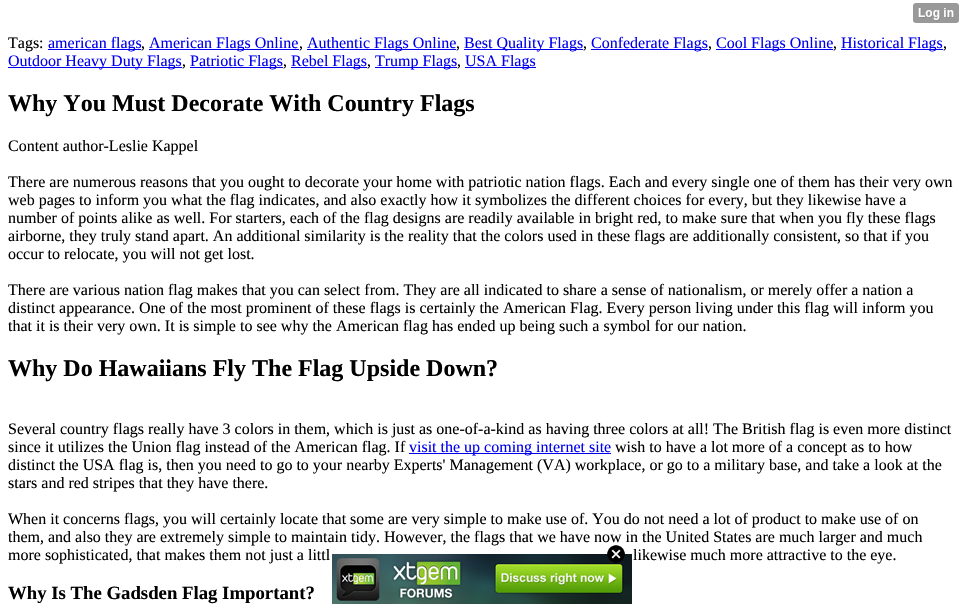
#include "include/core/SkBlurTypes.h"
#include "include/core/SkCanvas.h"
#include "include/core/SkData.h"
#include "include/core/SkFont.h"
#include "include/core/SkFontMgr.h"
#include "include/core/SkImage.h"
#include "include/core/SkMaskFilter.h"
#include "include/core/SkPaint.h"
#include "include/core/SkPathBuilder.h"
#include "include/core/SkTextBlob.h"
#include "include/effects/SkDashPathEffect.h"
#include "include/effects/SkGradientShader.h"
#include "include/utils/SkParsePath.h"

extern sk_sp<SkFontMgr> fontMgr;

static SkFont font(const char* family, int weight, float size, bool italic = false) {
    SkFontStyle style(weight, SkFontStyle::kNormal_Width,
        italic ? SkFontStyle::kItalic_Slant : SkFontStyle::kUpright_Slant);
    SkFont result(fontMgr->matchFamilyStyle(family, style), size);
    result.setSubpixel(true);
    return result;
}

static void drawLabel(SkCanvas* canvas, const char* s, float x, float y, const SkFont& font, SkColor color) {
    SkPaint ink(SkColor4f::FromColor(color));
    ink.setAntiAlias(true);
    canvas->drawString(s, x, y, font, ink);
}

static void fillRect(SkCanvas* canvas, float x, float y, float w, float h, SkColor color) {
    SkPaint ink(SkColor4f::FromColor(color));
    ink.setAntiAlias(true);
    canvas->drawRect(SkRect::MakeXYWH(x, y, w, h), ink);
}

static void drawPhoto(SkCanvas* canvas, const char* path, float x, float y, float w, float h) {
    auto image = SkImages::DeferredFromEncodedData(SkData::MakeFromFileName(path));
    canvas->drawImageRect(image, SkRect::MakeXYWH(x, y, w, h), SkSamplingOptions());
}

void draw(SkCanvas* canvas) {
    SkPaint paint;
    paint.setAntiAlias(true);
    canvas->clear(0xFFFFFFFF);
    drawPhoto(canvas, "assets/img1.png", 913, 3, 46, 20);
    SkFont font1 = font("Liberation Serif", 400, 16);
    drawLabel(canvas, "Tags:", 8, 48, font1, 0xFF000000);
    fillRect(canvas, 48, 49, 93, 1, 0xFF0000EE);
    drawLabel(canvas, "american flags", 48, 48, font1, 0xFF0000EE);
    drawLabel(canvas, ",", 141, 48, font1, 0xFF000000);
    fillRect(canvas, 149, 49, 150, 1, 0xFF0000EE);
    drawLabel(canvas, "American Flags Online", 149, 48, font1, 0xFF0000EE);
    drawLabel(canvas, ",", 299, 48, font1, 0xFF000000);
    fillRect(canvas, 307, 49, 149, 1, 0xFF0000EE);
    drawLabel(canvas, "Authentic Flags Online", 307, 48, font1, 0xFF0000EE);
    drawLabel(canvas, ",", 456, 48, font1, 0xFF000000);
    fillRect(canvas, 464, 49, 119, 1, 0xFF0000EE);
    drawLabel(canvas, "Best Quality Flags", 464, 48, font1, 0xFF0000EE);
    drawLabel(canvas, ",", 583, 48, font1, 0xFF000000);
    fillRect(canvas, 591, 49, 117, 1, 0xFF0000EE);
    drawLabel(canvas, "Confederate Flags", 591, 48, font1, 0xFF0000EE);
    drawLabel(canvas, ",", 708, 48, font1, 0xFF000000);
    fillRect(canvas, 716, 49, 117, 1, 0xFF0000EE);
    drawLabel(canvas, "Cool Flags Online", 716, 48, font1, 0xFF0000EE);
    drawLabel(canvas, ",", 833, 48, font1, 0xFF000000);
    fillRect(canvas, 841, 49, 102, 1, 0xFF0000EE);
    drawLabel(canvas, "Historical Flags", 841, 48, font1, 0xFF0000EE);
    drawLabel(canvas, ",", 943, 48, font1, 0xFF000000);
    fillRect(canvas, 8, 67, 174, 1, 0xFF0000EE);
    drawLabel(canvas, "Outdoor Heavy Duty Flags", 8, 66, font1, 0xFF0000EE);
    drawLabel(canvas, ",", 182, 66, font1, 0xFF000000);
    fillRect(canvas, 190, 67, 93, 1, 0xFF0000EE);
    drawLabel(canvas, "Patriotic Flags", 190, 66, font1, 0xFF0000EE);
    drawLabel(canvas, ",", 283, 66, font1, 0xFF000000);
    fillRect(canvas, 291, 67, 76, 1, 0xFF0000EE);
    drawLabel(canvas, "Rebel Flags", 291, 66, font1, 0xFF0000EE);
    drawLabel(canvas, ",", 367, 66, font1, 0xFF000000);
    fillRect(canvas, 375, 67, 82, 1, 0xFF0000EE);
    drawLabel(canvas, "Trump Flags", 375, 66, font1, 0xFF0000EE);
    drawLabel(canvas, ",", 457, 66, font1, 0xFF000000);
    fillRect(canvas, 465, 67, 71, 1, 0xFF0000EE);
    drawLabel(canvas, "USA Flags", 465, 66, font1, 0xFF0000EE);
    SkFont font2 = font("Liberation Serif", 700, 24);
    drawLabel(canvas, "Why You Must Decorate With Country Flags", 8, 111, font2, 0xFF000000);
    drawLabel(canvas, "Content author-Leslie Kappel", 8, 151, font1, 0xFF000000);
    drawLabel(canvas, "There are numerous reasons that you ought to decorate your home with patriotic nation flags. Each and every single one of them has their very own", 8, 187, font1, 0xFF000000);
    drawLabel(canvas, "web pages to inform you what the flag indicates, and also exactly how it symbolizes the different choices for every, but they likewise have a", 8, 205, font1, 0xFF000000);
    drawLabel(canvas, "number of points alike as well. For starters, each of the flag designs are readily available in bright red, to make sure that when you fly these flags", 8, 223, font1, 0xFF000000);
    drawLabel(canvas, "airborne, they truly stand apart. An additional similarity is the reality that the colors used in these flags are additionally consistent, so that if you", 8, 241, font1, 0xFF000000);
    drawLabel(canvas, "occur to relocate, you will not get lost.", 8, 259, font1, 0xFF000000);
    drawLabel(canvas, "There are various nation flag makes that you can select from. They are all indicated to share a sense of nationalism, or merely offer a nation a", 8, 295, font1, 0xFF000000);
    drawLabel(canvas, "distinct appearance. One of the most prominent of these flags is certainly the American Flag. Every person living under this flag will inform you", 8, 313, font1, 0xFF000000);
    drawLabel(canvas, "that it is their very own. It is simple to see why the American flag has ended up being such a symbol for our nation.", 8, 331, font1, 0xFF000000);
    drawLabel(canvas, "Why Do Hawaiians Fly The Flag Upside Down?", 8, 376, font2, 0xFF000000);
    drawLabel(canvas, "Several country flags really have 3 colors in them, which is just as one-of-a-kind as having three colors at all! The British flag is even more distinct", 8, 434, font1, 0xFF000000);
    drawLabel(canvas, "since it utilizes the Union flag instead of the American flag. If", 8, 452, font1, 0xFF000000);
    fillRect(canvas, 409, 453, 202, 1, 0xFF0000EE);
    drawLabel(canvas, "visit the up coming internet site", 409, 452, font1, 0xFF0000EE);
    drawLabel(canvas, "wish to have a lot more of a concept as to how", 615, 452, font1, 0xFF000000);
    drawLabel(canvas, "distinct the USA flag is, then you need to go to your nearby Experts' Management (VA) workplace, or go to a military base, and take a look at the", 8, 470, font1, 0xFF000000);
    drawLabel(canvas, "stars and red stripes that they have there.", 8, 488, font1, 0xFF000000);
    drawLabel(canvas, "When it concerns flags, you will certainly locate that some are very simple to make use of. You do not need a lot of product to make use of on", 8, 524, font1, 0xFF000000);
    drawLabel(canvas, "them, and also they are extremely simple to maintain tidy. However, the flags that we have now in the United States are much larger and much", 8, 542, font1, 0xFF000000);
    drawLabel(canvas, "more sophisticated, that makes them not just a littl", 8, 560, font1, 0xFF000000);
    drawLabel(canvas, "likewise much more attractive to the eye.", 633, 560, font1, 0xFF000000);
    SkFont font3 = font("Liberation Serif", 700, 18.75f);
    drawLabel(canvas, "Why Is The Gadsden Flag Important?", 8, 599, font3, 0xFF000000);
    drawPhoto(canvas, "assets/img3.png", 332, 554, 300, 50);
    drawPhoto(canvas, "assets/img2.png", 607, 545, 18, 18);
}
